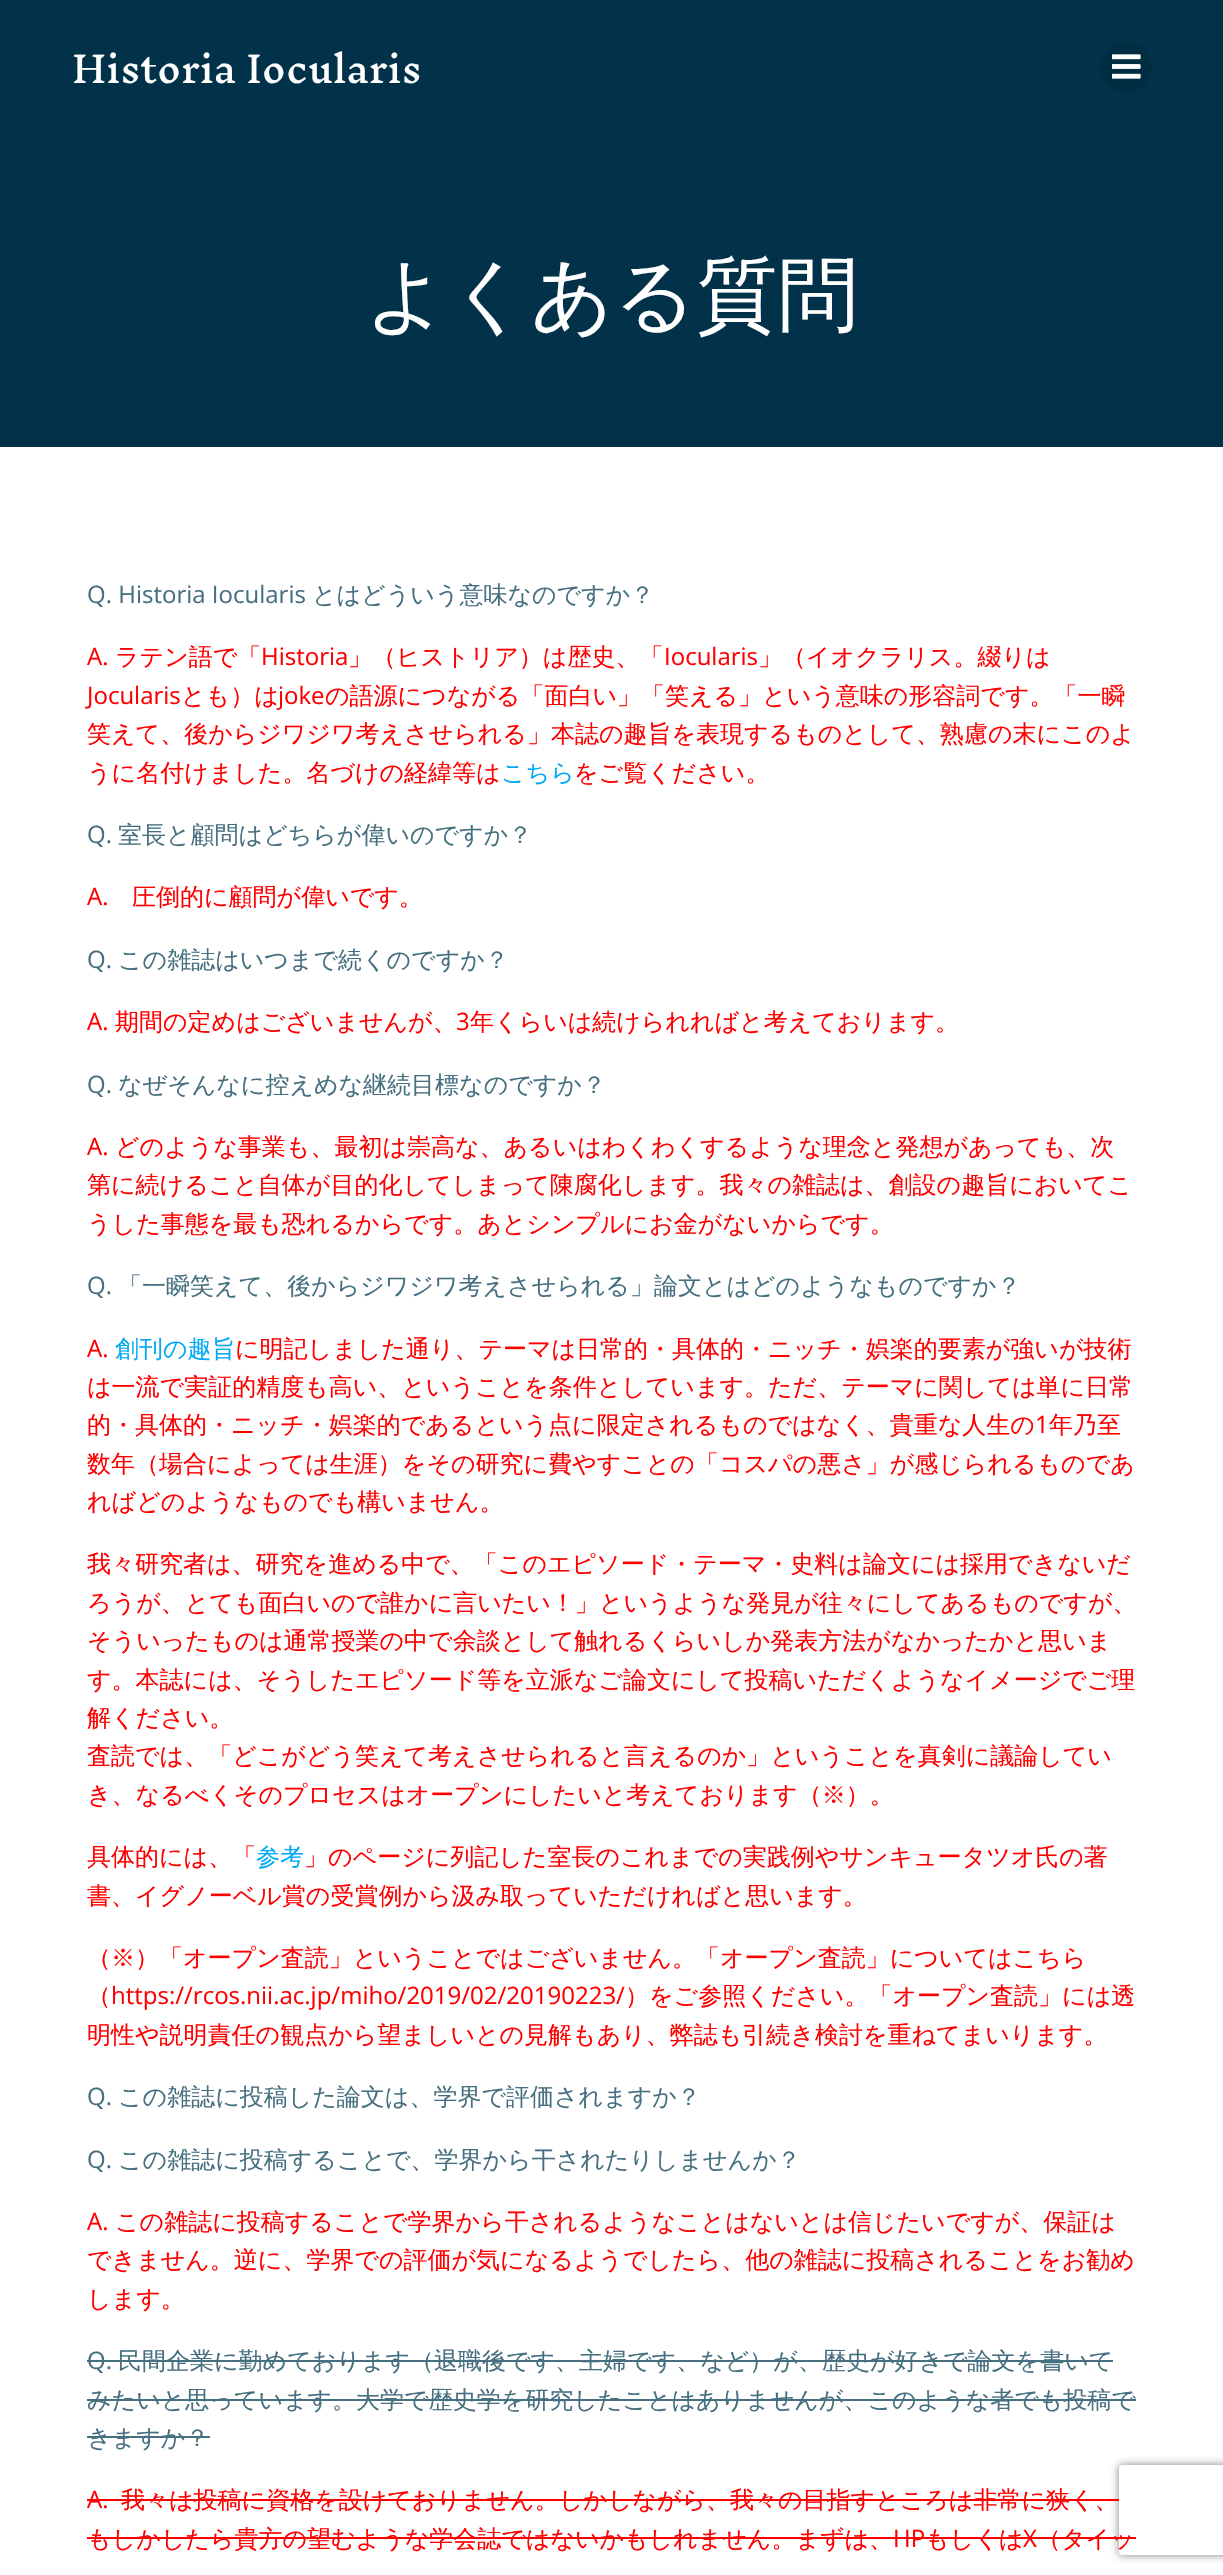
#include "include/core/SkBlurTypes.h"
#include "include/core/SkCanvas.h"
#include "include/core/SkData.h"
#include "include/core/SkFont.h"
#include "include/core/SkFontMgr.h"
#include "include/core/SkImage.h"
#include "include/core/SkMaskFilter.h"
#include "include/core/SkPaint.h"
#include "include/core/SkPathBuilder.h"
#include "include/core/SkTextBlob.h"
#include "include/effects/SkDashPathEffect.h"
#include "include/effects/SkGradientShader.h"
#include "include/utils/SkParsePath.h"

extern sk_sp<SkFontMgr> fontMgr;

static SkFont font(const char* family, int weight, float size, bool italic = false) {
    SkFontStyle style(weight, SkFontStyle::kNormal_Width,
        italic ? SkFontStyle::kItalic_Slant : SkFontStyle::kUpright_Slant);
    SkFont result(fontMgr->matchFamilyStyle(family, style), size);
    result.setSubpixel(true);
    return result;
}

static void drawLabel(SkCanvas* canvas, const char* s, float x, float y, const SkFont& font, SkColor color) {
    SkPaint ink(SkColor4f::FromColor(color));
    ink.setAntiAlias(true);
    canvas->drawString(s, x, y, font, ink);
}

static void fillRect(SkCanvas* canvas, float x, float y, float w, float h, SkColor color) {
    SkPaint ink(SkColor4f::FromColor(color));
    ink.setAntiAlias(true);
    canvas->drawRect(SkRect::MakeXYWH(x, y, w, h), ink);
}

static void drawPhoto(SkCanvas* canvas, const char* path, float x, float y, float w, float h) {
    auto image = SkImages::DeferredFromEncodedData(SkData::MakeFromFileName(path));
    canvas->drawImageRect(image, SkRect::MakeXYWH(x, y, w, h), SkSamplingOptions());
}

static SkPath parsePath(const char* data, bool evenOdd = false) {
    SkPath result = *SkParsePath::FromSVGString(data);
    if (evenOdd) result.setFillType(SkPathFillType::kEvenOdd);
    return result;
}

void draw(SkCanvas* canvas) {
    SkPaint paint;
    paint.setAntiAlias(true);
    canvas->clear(0xFFFFFFFF);
    fillRect(canvas, 0, 0, 1223, 447, 0xFF013249);
    SkFont font1 = font("Inknut Antiqua", 400, 36);
    drawLabel(canvas, "Historia Iocularis", 72, 83, font1, 0xFFFFFFFF);
    paint.setColor(0xFF012D42);
    canvas->drawCircle(1126.5f, 67.5f, 25.5f, paint);
    drawPhoto(canvas, "assets/img1.png", 1112, 54, 29, 25);
    SkFont font2 = font("WenQuanYi Zen Hei", 500, 81);
    drawLabel(canvas, "よくある質問", 365, 323, font2, 0xFFFFFFFF);
    SkFont font3 = font("Open Sans", 400, 24);
    drawLabel(canvas, "Q. Historia Iocularis", 87, 603, font3, 0xFF46707F);
    SkFont font4 = font("WenQuanYi Zen Hei", 500, 24);
    drawLabel(canvas, "とはどういう意味なのですか？", 312, 603, font4, 0xFF46707F);
    drawLabel(canvas, "A.", 87, 665, font3, 0xFFFF0000);
    drawLabel(canvas, "ラテン語で「", 115, 665, font4, 0xFFFF0000);
    drawLabel(canvas, "Historia", 261, 665, font3, 0xFFFF0000);
    drawLabel(canvas, "」（ヒストリア）は歴史、「", 348, 665, font4, 0xFFFF0000);
    drawLabel(canvas, "Iocularis", 664, 665, font3, 0xFFFF0000);
    drawLabel(canvas, "」（イオクラリス。綴りは", 758, 665, font4, 0xFFFF0000);
    drawLabel(canvas, "Jocularis", 87, 704, font3, 0xFFFF0000);
    drawLabel(canvas, "とも）は", 181, 704, font4, 0xFFFF0000);
    drawLabel(canvas, "joke", 278, 704, font3, 0xFFFF0000);
    drawLabel(canvas, "の語源につながる「面白い」「笑える」という意味の形容詞です。「一瞬", 325, 704, font4, 0xFFFF0000);
    drawLabel(canvas, "笑えて、後からジワジワ考えさせられる」本誌の趣旨を表現するものとして、熟慮の末にこのよ", 87, 742, font4, 0xFFFF0000);
    drawLabel(canvas, "うに名付けました。名づけの経緯等は", 87, 781, font4, 0xFFFF0000);
    drawLabel(canvas, "こちら", 501, 781, font4, 0xFF03A9F4);
    drawLabel(canvas, "をご覧ください。", 574, 781, font4, 0xFFFF0000);
    drawLabel(canvas, "Q.", 87, 843, font3, 0xFF46707F);
    drawLabel(canvas, "室長と顧問はどちらが偉いのですか？", 118, 843, font4, 0xFF46707F);
    drawLabel(canvas, "A.", 87, 905, font3, 0xFFFF0000);
    drawLabel(canvas, "圧倒的に顧問が偉いです。", 132, 905, font4, 0xFFFF0000);
    drawLabel(canvas, "Q.", 87, 968, font3, 0xFF46707F);
    drawLabel(canvas, "この雑誌はいつまで続くのですか？", 118, 968, font4, 0xFF46707F);
    drawLabel(canvas, "A.", 87, 1030, font3, 0xFFFF0000);
    drawLabel(canvas, "期間の定めはございませんが、", 115, 1030, font4, 0xFFFF0000);
    drawLabel(canvas, "3", 456, 1030, font3, 0xFFFF0000);
    drawLabel(canvas, "年くらいは続けられればと考えております。", 470, 1030, font4, 0xFFFF0000);
    drawLabel(canvas, "Q.", 87, 1093, font3, 0xFF46707F);
    drawLabel(canvas, "なぜそんなに控えめな継続目標なのですか？", 118, 1093, font4, 0xFF46707F);
    drawLabel(canvas, "A.", 87, 1155, font3, 0xFFFF0000);
    drawLabel(canvas, "どのような事業も、最初は崇高な、あるいはわくわくするような理念と発想があっても、次", 115, 1155, font4, 0xFFFF0000);
    drawLabel(canvas, "第に続けること自体が目的化してしまって陳腐化します。我々の雑誌は、創設の趣旨においてこ", 87, 1193, font4, 0xFFFF0000);
    drawLabel(canvas, "うした事態を最も恐れるからです。あとシンプルにお金がないからです。", 87, 1232, font4, 0xFFFF0000);
    drawLabel(canvas, "Q.", 87, 1294, font3, 0xFF46707F);
    drawLabel(canvas, "「一瞬笑えて、後からジワジワ考えさせられる」論文とはどのようなものですか？", 118, 1294, font4, 0xFF46707F);
    drawLabel(canvas, "A.", 87, 1357, font3, 0xFFFF0000);
    drawLabel(canvas, "創刊の趣旨", 115, 1357, font4, 0xFF03A9F4);
    drawLabel(canvas, "に明記しました通り、テーマは日常的・具体的・ニッチ・娯楽的要素が強いが技術", 235, 1357, font4, 0xFFFF0000);
    drawLabel(canvas, "は一流で実証的精度も高い、ということを条件としています。ただ、テーマに関しては単に日常", 87, 1395, font4, 0xFFFF0000);
    drawLabel(canvas, "的・具体的・ニッチ・娯楽的であるという点に限定されるものではなく、貴重な人生の", 87, 1433, font4, 0xFFFF0000);
    drawLabel(canvas, "1", 1035, 1433, font3, 0xFFFF0000);
    drawLabel(canvas, "年乃至", 1049, 1433, font4, 0xFFFF0000);
    drawLabel(canvas, "数年（場合によっては生涯）をその研究に費やすことの「コスパの悪さ」が感じられるものであ", 87, 1472, font4, 0xFFFF0000);
    drawLabel(canvas, "ればどのようなものでも構いません。", 87, 1510, font4, 0xFFFF0000);
    drawLabel(canvas, "我々研究者は、研究を進める中で、「このエピソード・テーマ・史料は論文には採用できないだ", 87, 1572, font4, 0xFFFF0000);
    drawLabel(canvas, "ろうが、とても面白いので誰かに言いたい！」というような発見が往々にしてあるものですが、", 87, 1611, font4, 0xFFFF0000);
    drawLabel(canvas, "そういったものは通常授業の中で余談として触れるくらいしか発表方法がなかったかと思いま", 87, 1649, font4, 0xFFFF0000);
    drawLabel(canvas, "す。本誌には、そうしたエピソード等を立派なご論文にして投稿いただくようなイメージでご理", 87, 1688, font4, 0xFFFF0000);
    drawLabel(canvas, "解ください。", 87, 1726, font4, 0xFFFF0000);
    drawLabel(canvas, "査読では、「どこがどう笑えて考えさせられると言えるのか」ということを真剣に議論してい", 87, 1764, font4, 0xFFFF0000);
    drawLabel(canvas, "き、なるべくそのプロセスはオープンにしたいと考えております（※）。", 87, 1803, font4, 0xFFFF0000);
    drawLabel(canvas, "具体的には、「", 87, 1865, font4, 0xFFFF0000);
    drawLabel(canvas, "参考", 256, 1865, font4, 0xFF03A9F4);
    drawLabel(canvas, "」のページに列記した室長のこれまでの実践例やサンキュータツオ氏の著", 304, 1865, font4, 0xFFFF0000);
    drawLabel(canvas, "書、イグノーベル賞の受賞例から汲み取っていただければと思います。", 87, 1904, font4, 0xFFFF0000);
    drawLabel(canvas, "（※）「オープン査読」ということではございません。「オープン査読」についてはこちら", 87, 1966, font4, 0xFFFF0000);
    drawLabel(canvas, "（", 87, 2004, font4, 0xFFFF0000);
    drawLabel(canvas, "https://rcos.nii.ac.jp/miho/2019/02/20190223/", 111, 2004, font3, 0xFFFF0000);
    drawLabel(canvas, "）をご参照ください。「オープン査読」には透", 625, 2004, font4, 0xFFFF0000);
    drawLabel(canvas, "明性や説明責任の観点から望ましいとの見解もあり、弊誌も引続き検討を重ねてまいります。", 87, 2043, font4, 0xFFFF0000);
    drawLabel(canvas, "Q.", 87, 2105, font3, 0xFF46707F);
    drawLabel(canvas, "この雑誌に投稿した論文は、学界で評価されますか？", 118, 2105, font4, 0xFF46707F);
    drawLabel(canvas, "Q.", 87, 2168, font3, 0xFF46707F);
    drawLabel(canvas, "この雑誌に投稿することで、学界から干されたりしませんか？", 118, 2168, font4, 0xFF46707F);
    drawLabel(canvas, "A.", 87, 2230, font3, 0xFFFF0000);
    drawLabel(canvas, "この雑誌に投稿することで学界から干されるようなことはないとは信じたいですが、保証は", 115, 2230, font4, 0xFFFF0000);
    drawLabel(canvas, "できません。逆に、学界での評価が気になるようでしたら、他の雑誌に投稿されることをお勧め", 87, 2268, font4, 0xFFFF0000);
    drawLabel(canvas, "します。", 87, 2307, font4, 0xFFFF0000);
    drawLabel(canvas, "Q.", 87, 2369, font3, 0xFF46707F);
    drawLabel(canvas, "民間企業に勤めております（退職後です、主婦です、など）が、歴史が好きで論文を書いて", 118, 2369, font4, 0xFF46707F);
    fillRect(canvas, 87, 2360, 1026, 2, 0xFF46707F);
    drawLabel(canvas, "みたいと思っています。大学で歴史学を研究したことはありませんが、このような者でも投稿で", 87, 2408, font4, 0xFF46707F);
    fillRect(canvas, 87, 2399, 1049, 2, 0xFF46707F);
    drawLabel(canvas, "きますか？", 87, 2446, font4, 0xFF46707F);
    fillRect(canvas, 87, 2436, 123, 2, 0xFF46707F);
    drawLabel(canvas, "A.", 87, 2508, font3, 0xFFFF0000);
    canvas->save();
    canvas->clipPath(parsePath("M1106 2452H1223V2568H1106ZM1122 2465H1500C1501.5 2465 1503 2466.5 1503 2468V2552C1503 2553.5 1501.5 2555 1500 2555H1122C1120.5 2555 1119 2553.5 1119 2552V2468C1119 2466.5 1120.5 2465 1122 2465Z", true), true);
    paint.setColor(0xFF808080);
    paint.setMaskFilter(SkMaskFilter::MakeBlur(kNormal_SkBlurStyle, 4));
    canvas->drawRoundRect(SkRect::MakeXYWH(1119, 2465, 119, 90), 3, 3, paint);
    paint.setMaskFilter(nullptr);
    canvas->restore();
    fillRect(canvas, 87, 2499, 1032, 2, 0xFFFF0000);
    drawLabel(canvas, "我々は投稿に資格を設けておりません。しかしながら、我々の目指すところは非常に狭く、", 121, 2508, font4, 0xFFFF0000);
    drawLabel(canvas, "もしかしたら貴方の望むような学会誌ではないかもしれません。まずは、", 87, 2547, font4, 0xFFFF0000);
    drawLabel(canvas, "HP", 893, 2547, font3, 0xFFFF0000);
    fillRect(canvas, 87, 2537, 1049, 2, 0xFFFF0000);
    drawLabel(canvas, "もしくは", 925, 2547, font4, 0xFFFF0000);
    drawLabel(canvas, "X", 1023, 2547, font3, 0xFFFF0000);
    drawLabel(canvas, "（タイッ", 1037, 2547, font4, 0xFFFF0000);
}
